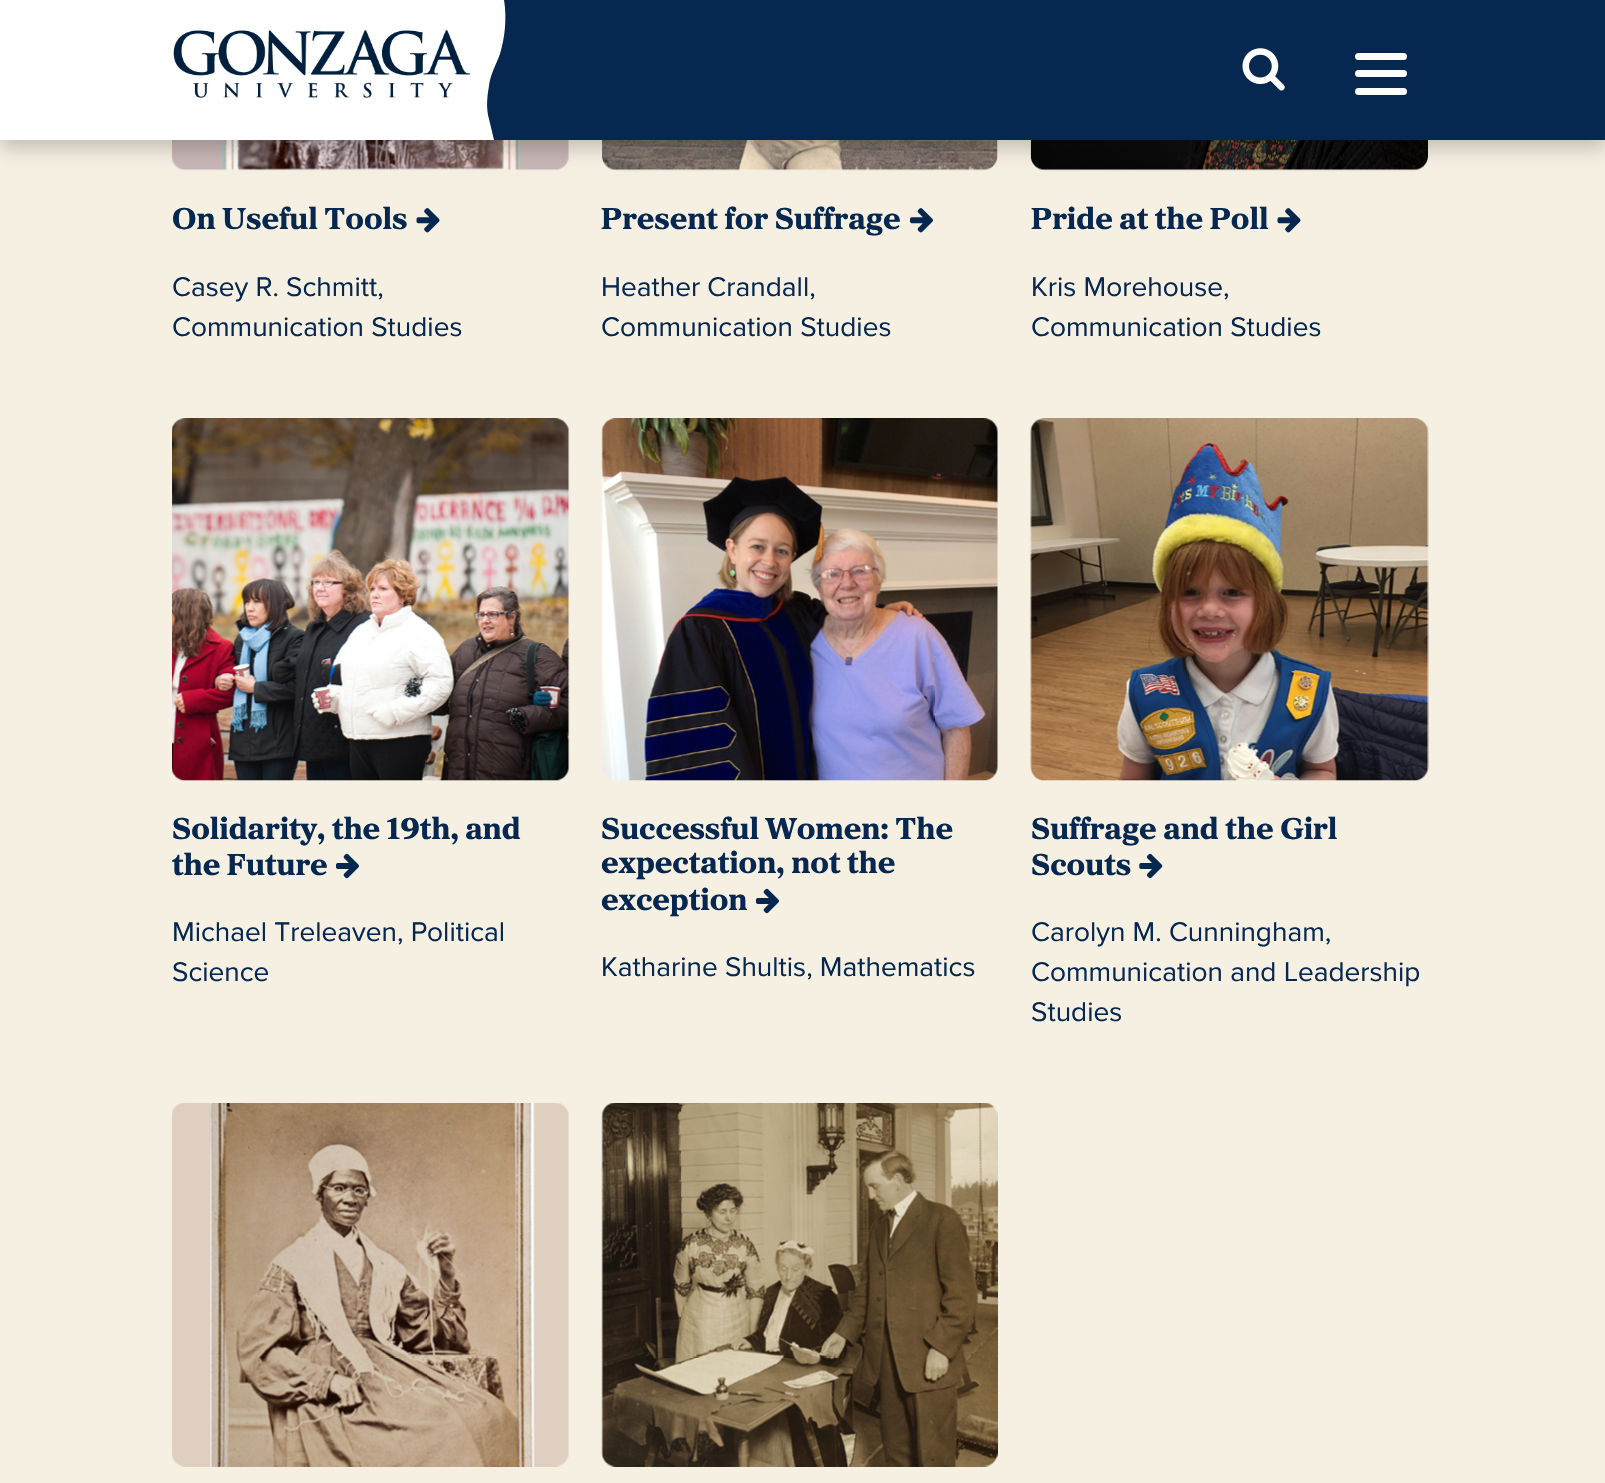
#include "include/core/SkBlurTypes.h"
#include "include/core/SkCanvas.h"
#include "include/core/SkData.h"
#include "include/core/SkFont.h"
#include "include/core/SkFontMgr.h"
#include "include/core/SkImage.h"
#include "include/core/SkMaskFilter.h"
#include "include/core/SkPaint.h"
#include "include/core/SkPathBuilder.h"
#include "include/core/SkTextBlob.h"
#include "include/effects/SkDashPathEffect.h"
#include "include/effects/SkGradientShader.h"
#include "include/utils/SkParsePath.h"

extern sk_sp<SkFontMgr> fontMgr;

static SkFont font(const char* family, int weight, float size, bool italic = false) {
    SkFontStyle style(weight, SkFontStyle::kNormal_Width,
        italic ? SkFontStyle::kItalic_Slant : SkFontStyle::kUpright_Slant);
    SkFont result(fontMgr->matchFamilyStyle(family, style), size);
    result.setSubpixel(true);
    return result;
}

static void drawLabel(SkCanvas* canvas, const char* s, float x, float y, const SkFont& font, SkColor color) {
    SkPaint ink(SkColor4f::FromColor(color));
    ink.setAntiAlias(true);
    canvas->drawString(s, x, y, font, ink);
}

static void fillRect(SkCanvas* canvas, float x, float y, float w, float h, SkColor color) {
    SkPaint ink(SkColor4f::FromColor(color));
    ink.setAntiAlias(true);
    canvas->drawRect(SkRect::MakeXYWH(x, y, w, h), ink);
}

static void fillRRect(SkCanvas* canvas, float x, float y, float w, float h, float radius, SkColor color) {
    SkPaint ink(SkColor4f::FromColor(color));
    ink.setAntiAlias(true);
    canvas->drawRoundRect(SkRect::MakeXYWH(x, y, w, h), radius, radius, ink);
}

static void drawPhoto(SkCanvas* canvas, const char* path, float x, float y, float w, float h) {
    auto image = SkImages::DeferredFromEncodedData(SkData::MakeFromFileName(path));
    canvas->drawImageRect(image, SkRect::MakeXYWH(x, y, w, h), SkSamplingOptions());
}

static SkPath parsePath(const char* data, bool evenOdd = false) {
    SkPath result = *SkParsePath::FromSVGString(data);
    if (evenOdd) result.setFillType(SkPathFillType::kEvenOdd);
    return result;
}

void draw(SkCanvas* canvas) {
    SkPaint paint;
    paint.setAntiAlias(true);
    canvas->clear(0xFFF6F0E3);
    drawPhoto(canvas, "assets/img3.png", 172, 140, 397, 31);
    drawPhoto(canvas, "assets/img5.png", 602, 140, 396, 31);
    drawPhoto(canvas, "assets/img7.png", 1030, 140, 398, 31);
    paint.setColor(0x33000000);
    paint.setMaskFilter(SkMaskFilter::MakeBlur(kNormal_SkBlurStyle, 9));
    canvas->drawRect(SkRect::MakeXYWH(0, 9, 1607, 140), paint);
    paint.setMaskFilter(nullptr);
    fillRect(canvas, 0, 0, 182, 140, 0xFFFFFFFF);
    fillRect(canvas, 487, 0, 1118, 140, 0xFF06274F);
    paint.setColor(0xFFFFFFFF);
    canvas->drawPath(parsePath("M504 0H182V140H494L489 119C486 108 487 97 489 86C490 75 496 65 500 54C505 37 507 18 504 0Z"), paint);
    drawPhoto(canvas, "assets/img1.png", 173, 29, 298, 69);
    drawPhoto(canvas, "assets/img2.png", 1242, 48, 43, 43);
    fillRRect(canvas, 1355, 70, 52, 7, 3.5f, 0xFFFFFFFF);
    fillRRect(canvas, 1355, 53, 52, 7, 3.5f, 0xFFFFFFFF);
    fillRRect(canvas, 1355, 88, 52, 7, 3.5f, 0xFFFFFFFF);
    SkFont font1 = font("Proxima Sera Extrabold", 800, 31.5f);
    drawLabel(canvas, "On Useful Tools", 172, 229, font1, 0xFF06274F);
    drawPhoto(canvas, "assets/img4.png", 416, 208, 24, 25);
    SkFont font2 = font("Proxima Nova", 400, 28);
    drawLabel(canvas, "Casey R. Schmitt,", 172, 296, font2, 0xFF06274F);
    drawLabel(canvas, "Communication Studies", 172, 336, font2, 0xFF06274F);
    drawLabel(canvas, "Present for Suffrage", 601, 229, font1, 0xFF06274F);
    drawPhoto(canvas, "assets/img6.png", 910, 208, 23, 25);
    drawLabel(canvas, "Heather Crandall,", 601, 296, font2, 0xFF06274F);
    drawLabel(canvas, "Communication Studies", 601, 336, font2, 0xFF06274F);
    drawLabel(canvas, "Pride at the Poll", 1031, 229, font1, 0xFF06274F);
    drawPhoto(canvas, "assets/img4.png", 1277, 208, 24, 25);
    drawLabel(canvas, "Kris Morehouse,", 1031, 296, font2, 0xFF06274F);
    drawLabel(canvas, "Communication Studies", 1031, 336, font2, 0xFF06274F);
    drawPhoto(canvas, "assets/img8.png", 172, 418, 398, 363);
    drawLabel(canvas, "Solidarity, the 19th, and", 172, 839, font1, 0xFF06274F);
    drawLabel(canvas, "the Future", 172, 875, font1, 0xFF06274F);
    drawPhoto(canvas, "assets/img9.png", 336, 853, 23, 26);
    drawLabel(canvas, "Michael Treleaven, Political", 172, 941, font2, 0xFF06274F);
    drawLabel(canvas, "Science", 172, 981, font2, 0xFF06274F);
    drawPhoto(canvas, "assets/img10.png", 601, 418, 397, 363);
    drawLabel(canvas, "Successful Women: The", 601, 839, font1, 0xFF06274F);
    drawLabel(canvas, "expectation, not the", 601, 873, font1, 0xFF06274F);
    drawLabel(canvas, "exception", 601, 910, font1, 0xFF06274F);
    drawPhoto(canvas, "assets/img9.png", 756, 888, 23, 26);
    drawLabel(canvas, "Katharine Shultis, Mathematics", 601, 976, font2, 0xFF06274F);
    drawPhoto(canvas, "assets/img11.png", 1030, 418, 399, 363);
    drawLabel(canvas, "Suffrage and the Girl", 1031, 839, font1, 0xFF06274F);
    drawLabel(canvas, "Scouts", 1031, 875, font1, 0xFF06274F);
    drawPhoto(canvas, "assets/img12.png", 1139, 853, 24, 26);
    drawLabel(canvas, "Carolyn M. Cunningham,", 1031, 941, font2, 0xFF06274F);
    drawLabel(canvas, "Communication and Leadership", 1031, 981, font2, 0xFF06274F);
    drawLabel(canvas, "Studies", 1031, 1021, font2, 0xFF06274F);
    drawPhoto(canvas, "assets/img13.png", 172, 1103, 397, 364);
    drawPhoto(canvas, "assets/img14.png", 601, 1103, 397, 364);
}
